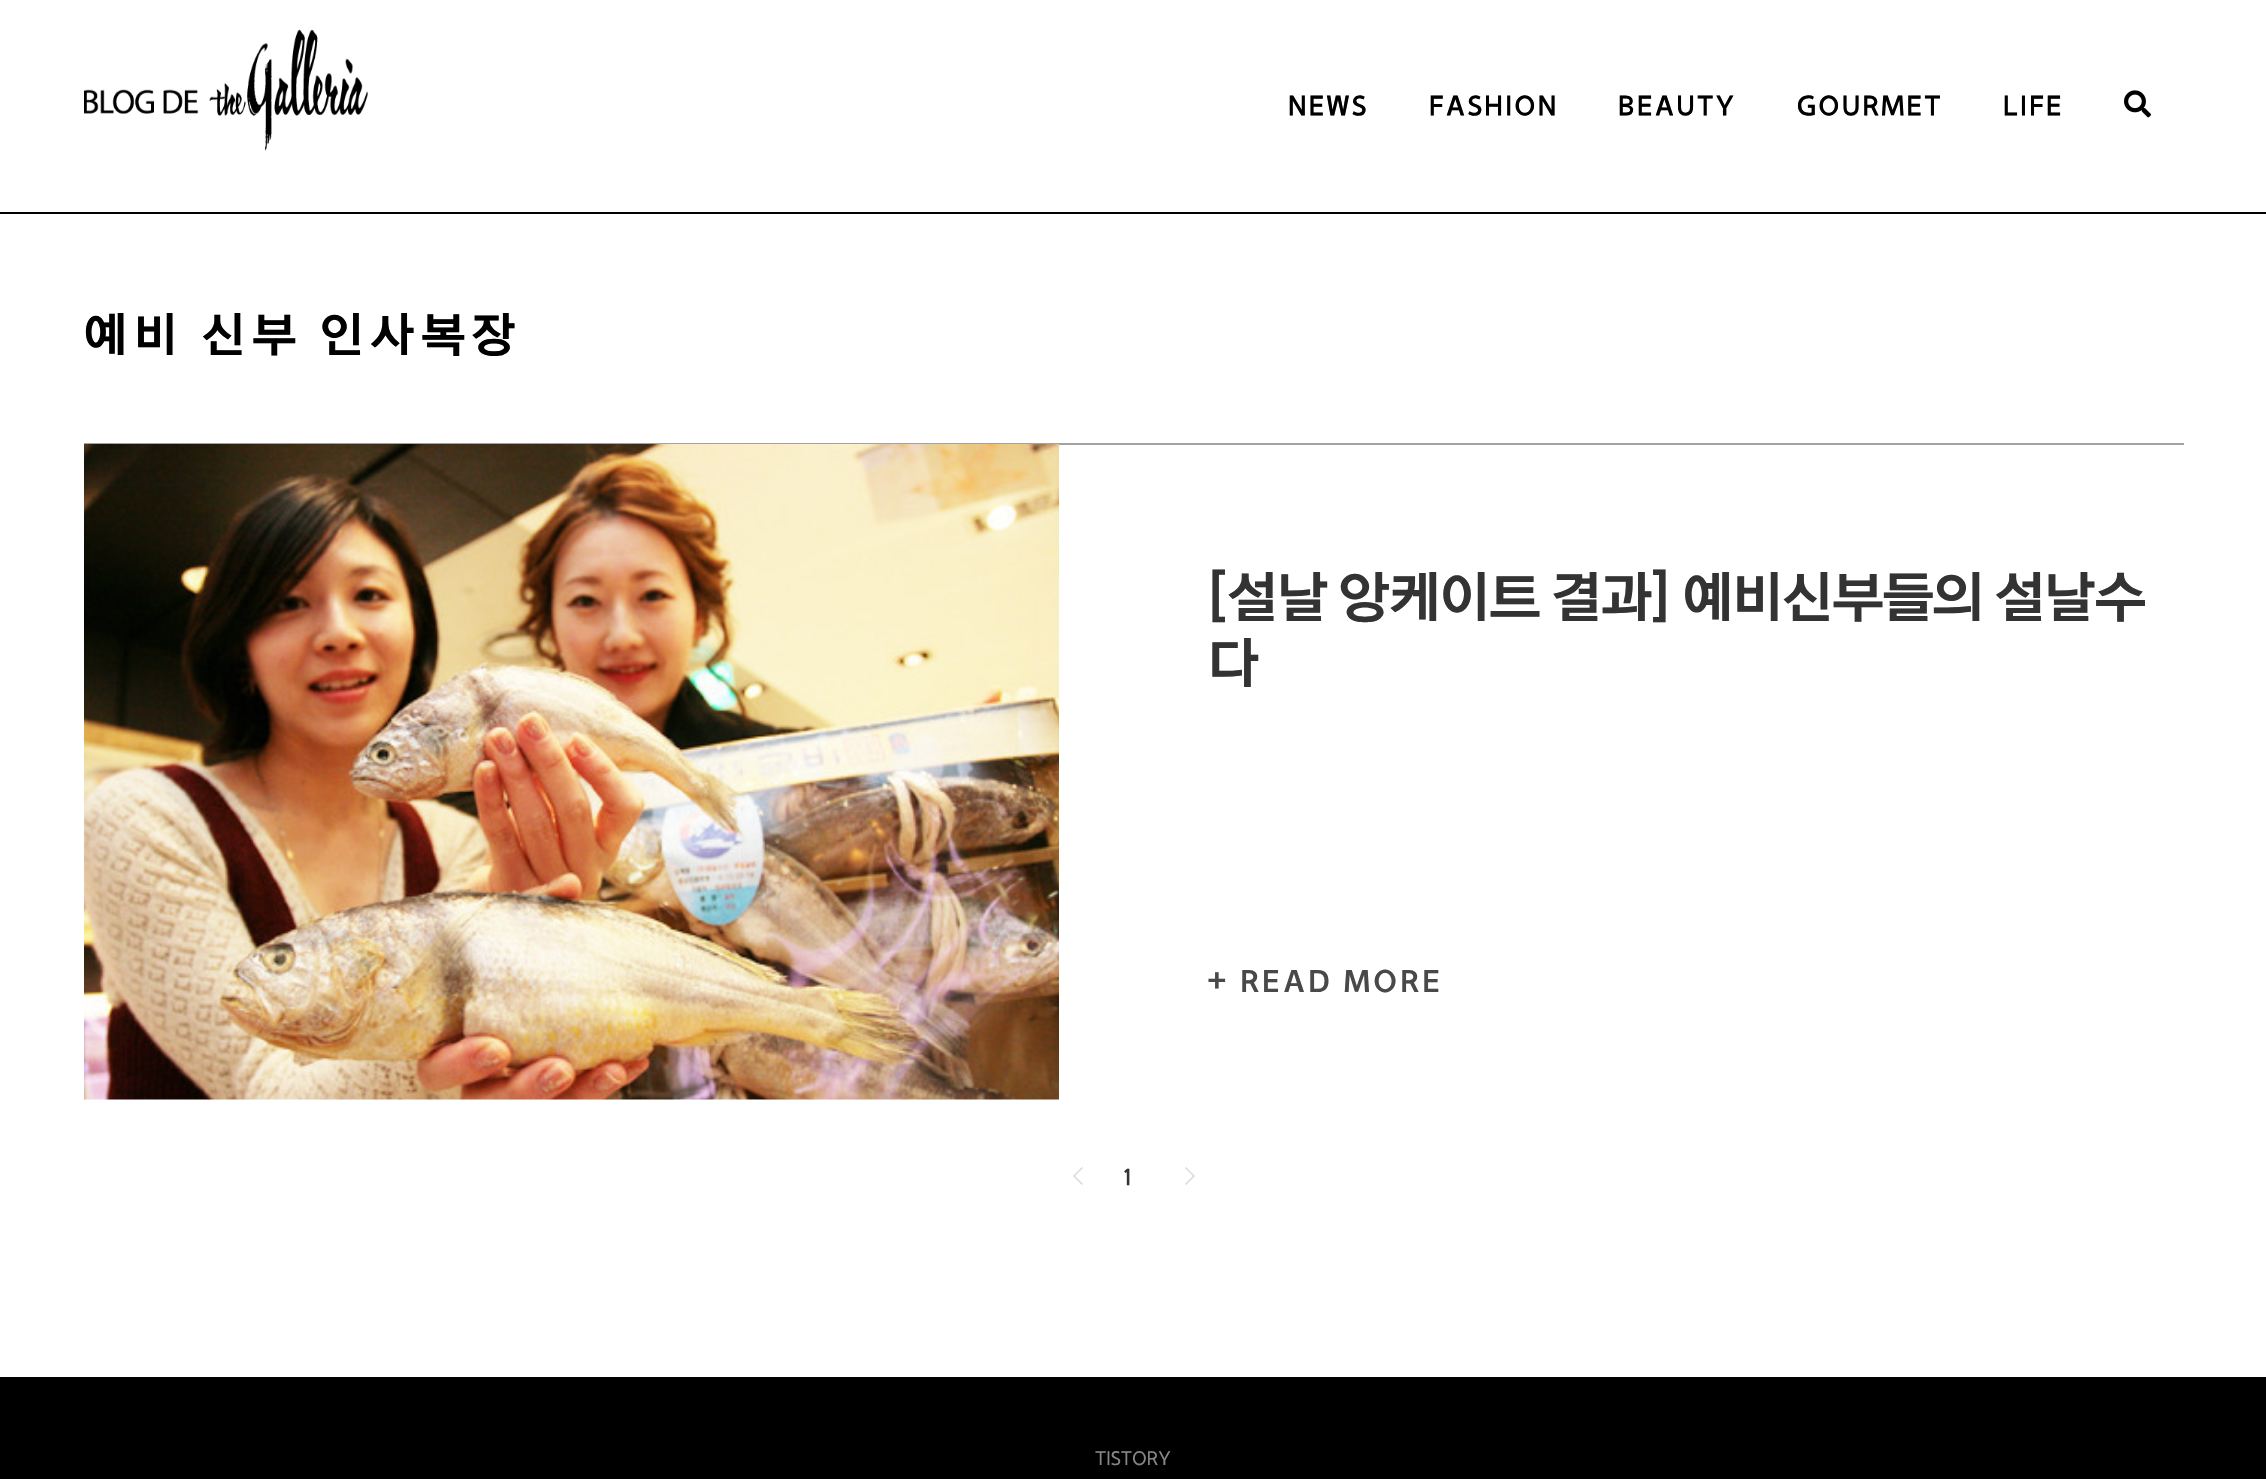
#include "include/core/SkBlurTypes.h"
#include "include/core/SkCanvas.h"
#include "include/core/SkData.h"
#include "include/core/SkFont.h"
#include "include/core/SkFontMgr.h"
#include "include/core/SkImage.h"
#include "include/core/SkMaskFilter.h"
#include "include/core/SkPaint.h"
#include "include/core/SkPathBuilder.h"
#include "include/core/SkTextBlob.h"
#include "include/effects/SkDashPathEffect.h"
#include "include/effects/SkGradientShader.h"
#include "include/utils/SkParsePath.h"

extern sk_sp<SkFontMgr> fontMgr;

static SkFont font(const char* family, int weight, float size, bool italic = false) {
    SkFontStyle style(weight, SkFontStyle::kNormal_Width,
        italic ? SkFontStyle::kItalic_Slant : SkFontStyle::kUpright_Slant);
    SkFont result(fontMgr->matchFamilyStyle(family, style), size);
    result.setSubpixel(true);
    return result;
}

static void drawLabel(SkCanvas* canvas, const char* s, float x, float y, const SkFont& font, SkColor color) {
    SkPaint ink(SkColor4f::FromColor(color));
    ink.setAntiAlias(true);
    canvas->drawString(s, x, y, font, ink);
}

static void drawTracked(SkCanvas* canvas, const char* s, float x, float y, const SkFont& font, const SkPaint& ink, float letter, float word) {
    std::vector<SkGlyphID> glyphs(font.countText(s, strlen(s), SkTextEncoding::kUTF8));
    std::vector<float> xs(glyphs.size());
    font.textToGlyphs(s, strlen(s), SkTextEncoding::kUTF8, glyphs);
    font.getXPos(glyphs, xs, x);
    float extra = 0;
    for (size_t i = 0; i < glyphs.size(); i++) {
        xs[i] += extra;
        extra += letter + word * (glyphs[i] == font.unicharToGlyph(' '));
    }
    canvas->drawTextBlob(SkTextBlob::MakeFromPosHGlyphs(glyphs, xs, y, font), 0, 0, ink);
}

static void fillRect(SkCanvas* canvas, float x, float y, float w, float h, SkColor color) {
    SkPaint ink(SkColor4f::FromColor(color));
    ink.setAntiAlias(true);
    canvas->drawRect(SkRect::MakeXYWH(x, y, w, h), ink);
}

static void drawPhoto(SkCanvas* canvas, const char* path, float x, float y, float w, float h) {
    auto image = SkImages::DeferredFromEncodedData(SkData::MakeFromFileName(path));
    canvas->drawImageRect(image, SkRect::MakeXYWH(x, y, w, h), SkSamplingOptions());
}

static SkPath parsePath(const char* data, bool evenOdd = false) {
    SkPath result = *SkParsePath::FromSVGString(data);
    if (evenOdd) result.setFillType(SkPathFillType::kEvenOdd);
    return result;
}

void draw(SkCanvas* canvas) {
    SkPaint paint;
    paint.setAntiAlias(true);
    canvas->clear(0xFFFFFFFF);
    fillRect(canvas, 0, 212, 2266, 2, 0xFF000000);
    drawPhoto(canvas, "assets/img1.png", 84, 29, 285, 122);
    SkFont font1 = font("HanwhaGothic", 700, 27);
    paint.setColor(0xFF000000);
    drawTracked(canvas, "NEWS", 1288, 114, font1, paint, 3, 0);
    drawTracked(canvas, "FASHION", 1429, 114, font1, paint, 3, 0);
    drawTracked(canvas, "BEAUTY", 1618, 114, font1, paint, 3, 0);
    drawTracked(canvas, "GOURMET", 1797, 114, font1, paint, 3, 0);
    drawTracked(canvas, "LIFE", 2003, 114, font1, paint, 3, 0);
    drawPhoto(canvas, "assets/img2.png", 2124, 90, 27, 28);
    SkFont font2 = font("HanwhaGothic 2", 700, 48);
    drawTracked(canvas, "예비 신부 인사복장", 83, 349, font2, paint, 7.5f, 0);
    fillRect(canvas, 84, 443, 2100, 2, 0xFFA2A2A2);
    drawPhoto(canvas, "assets/img3.png", 84, 444, 975, 656);
    SkFont font3 = font("HanwhaGothic 2", 700, 56);
    drawLabel(canvas, "[설날 앙케이트 결과] 예비신부들의 설날수", 1208, 614, font3, 0xFF333333);
    drawLabel(canvas, "다", 1208, 680, font3, 0xFF333333);
    SkFont font4 = font("HanwhaGothic 2", 700, 30);
    paint.setColor(0xFF494949);
    drawTracked(canvas, "+ READ MORE", 1208, 990, font4, paint, 4.5f, 0);
    paint.setColor(0xFFD9D9D9);
    canvas->drawPath(parsePath("M1082 1185L1083 1184L1075 1176L1083 1168L1082 1167L1073 1176"), paint);
    SkFont font5 = font("HanwhaGothic", 700, 22);
    drawLabel(canvas, "1", 1121, 1184, font5, 0xFF333333);
    canvas->drawPath(parsePath("M1186 1167L1185 1168L1193 1176L1185 1184L1186 1185L1195 1176"), paint);
    fillRect(canvas, 0, 1377, 2266, 102, 0xFF000000);
    SkFont font6 = font("HanwhaGothic", 300, 19.5f);
    drawLabel(canvas, "TISTORY", 1095, 1464, font6, 0xFF858585);
}
